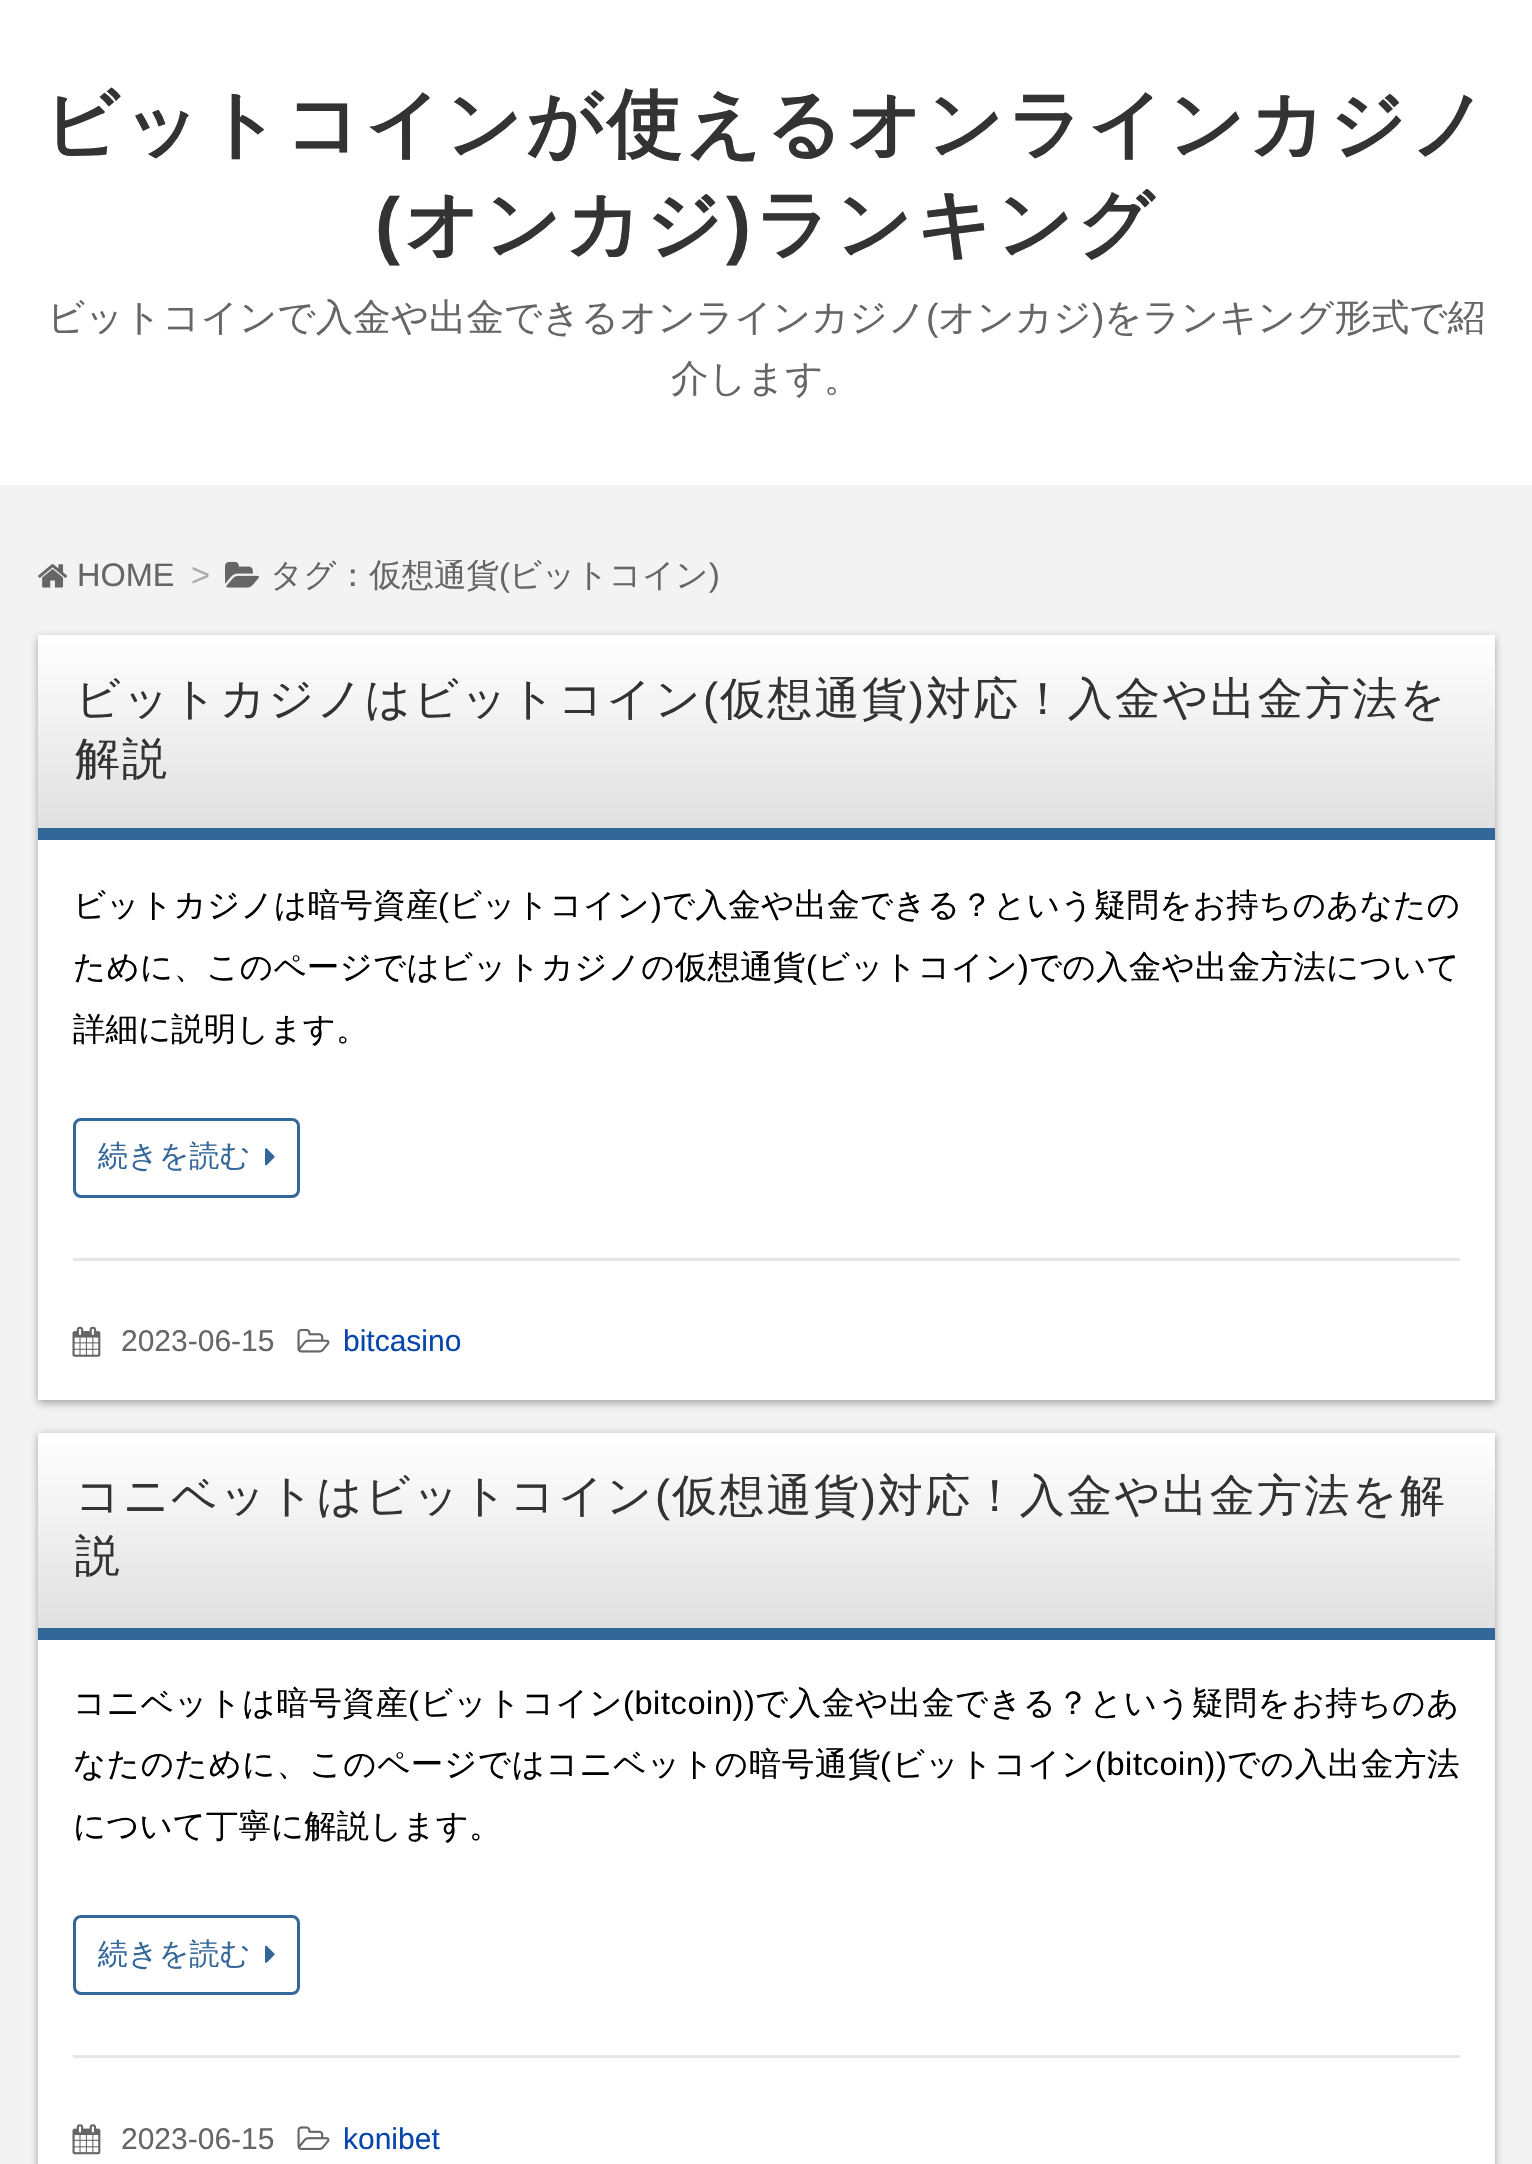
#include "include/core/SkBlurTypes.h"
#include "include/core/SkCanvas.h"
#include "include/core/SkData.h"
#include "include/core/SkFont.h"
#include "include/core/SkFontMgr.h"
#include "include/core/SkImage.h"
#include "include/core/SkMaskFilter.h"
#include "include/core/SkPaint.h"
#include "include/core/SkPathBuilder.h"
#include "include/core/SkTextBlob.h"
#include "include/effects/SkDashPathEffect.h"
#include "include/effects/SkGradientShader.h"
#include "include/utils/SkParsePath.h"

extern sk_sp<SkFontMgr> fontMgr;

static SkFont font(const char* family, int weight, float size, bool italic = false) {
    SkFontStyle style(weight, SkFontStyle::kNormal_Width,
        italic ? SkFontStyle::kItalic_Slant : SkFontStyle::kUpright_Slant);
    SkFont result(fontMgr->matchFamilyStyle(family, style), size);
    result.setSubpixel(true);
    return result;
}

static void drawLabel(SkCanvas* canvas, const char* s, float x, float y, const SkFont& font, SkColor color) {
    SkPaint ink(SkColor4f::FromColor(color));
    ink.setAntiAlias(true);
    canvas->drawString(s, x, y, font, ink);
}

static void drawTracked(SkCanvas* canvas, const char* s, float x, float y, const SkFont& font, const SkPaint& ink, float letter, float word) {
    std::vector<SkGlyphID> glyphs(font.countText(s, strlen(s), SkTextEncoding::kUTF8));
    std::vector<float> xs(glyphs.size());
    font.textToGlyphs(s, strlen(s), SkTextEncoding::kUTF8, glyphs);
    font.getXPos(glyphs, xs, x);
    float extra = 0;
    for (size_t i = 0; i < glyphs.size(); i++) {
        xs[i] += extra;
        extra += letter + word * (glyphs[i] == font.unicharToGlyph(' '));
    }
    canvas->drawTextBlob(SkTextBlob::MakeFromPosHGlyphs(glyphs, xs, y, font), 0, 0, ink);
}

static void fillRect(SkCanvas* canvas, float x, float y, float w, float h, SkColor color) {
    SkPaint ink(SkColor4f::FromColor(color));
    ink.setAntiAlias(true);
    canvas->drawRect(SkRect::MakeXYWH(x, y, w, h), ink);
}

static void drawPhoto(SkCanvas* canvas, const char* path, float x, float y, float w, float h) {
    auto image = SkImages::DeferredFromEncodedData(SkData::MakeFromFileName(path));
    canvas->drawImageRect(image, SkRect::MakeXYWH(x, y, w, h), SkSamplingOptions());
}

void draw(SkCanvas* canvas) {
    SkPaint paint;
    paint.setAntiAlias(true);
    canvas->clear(0xFFF3F3F3);
    fillRect(canvas, 0, 0, 1532, 485, 0xFFFFFFFF);
    SkFont font1 = font("WenQuanYi Zen Hei", 700, 75);
    paint.setColor(0xFF333333);
    drawTracked(canvas, "ビットコインが使えるオンラインカジノ", 43, 150, font1, paint, 3.75f, 0);
    SkFont font2 = font("Liberation Sans", 700, 75);
    drawTracked(canvas, "(", 375, 250, font2, paint, 3.75f, 0);
    drawTracked(canvas, "オンカジ", 404, 250, font1, paint, 3.75f, 0);
    drawTracked(canvas, ")", 726, 250, font2, paint, 3.75f, 0);
    drawTracked(canvas, "ランキング", 755, 250, font1, paint, 3.75f, 0);
    SkFont font3 = font("WenQuanYi Zen Hei", 500, 37.5f);
    drawLabel(canvas, "ビットコインで入金や出金できるオンラインカジノ", 47, 330, font3, 0xFF666666);
    SkFont font4 = font("Liberation Sans", 400, 37.5f);
    drawLabel(canvas, "(", 926, 330, font4, 0xFF666666);
    drawLabel(canvas, "オンカジ", 938, 330, font3, 0xFF666666);
    drawLabel(canvas, ")", 1092, 330, font4, 0xFF666666);
    drawLabel(canvas, "をランキング形式で紹", 1104, 330, font3, 0xFF666666);
    drawLabel(canvas, "介します。", 671, 391, font3, 0xFF666666);
    drawPhoto(canvas, "assets/img1.png", 38, 564, 30, 24);
    SkFont font5 = font("Liberation Sans", 400, 32.5f);
    drawLabel(canvas, "HOME", 77, 586, font5, 0xFF666666);
    drawLabel(canvas, ">", 191, 586, font5, 0xFFAAAAAA);
    drawPhoto(canvas, "assets/img2.png", 225, 561, 34, 27);
    canvas->save();
    canvas->clipRect(SkRect::MakeXYWH(225, 560, 495, 33));
    SkFont font6 = font("WenQuanYi Zen Hei", 500, 32.5f);
    drawLabel(canvas, "タグ：仮想通貨", 270, 586, font6, 0xFF666666);
    canvas->restore();
    drawLabel(canvas, "(", 499, 586, font5, 0xFF666666);
    drawLabel(canvas, "ビットコイン", 509, 586, font6, 0xFF666666);
    drawLabel(canvas, ")", 709, 586, font5, 0xFF666666);
    paint.setColor(0x54000000);
    paint.setMaskFilter(SkMaskFilter::MakeBlur(kNormal_SkBlurStyle, 4));
    canvas->drawRect(SkRect::MakeXYWH(38, 638, 1457, 765), paint);
    paint.setMaskFilter(nullptr);
    fillRect(canvas, 38, 840, 1457, 560, 0xFFFFFFFF);
    {
        const SkColor colors[] = {0xFFFFFFFF, 0xFFE0E0E0};
        const float stops[] = {0, 1};
        const SkPoint ends[] = {{766, 635}, {766, 828}};
        paint.setShader(SkGradientShader::MakeLinear(ends, colors, stops, 2, SkTileMode::kClamp));
        paint.setAlpha(255);
    }
    canvas->drawRect(SkRect::MakeXYWH(38, 635, 1457, 193), paint);
    fillRect(canvas, 38, 828, 1457, 12, 0xFF336699);
    SkFont font7 = font("WenQuanYi Zen Hei", 500, 45);
    paint.setShader(nullptr);
    paint.setColor(0xFF333333);
    drawTracked(canvas, "ビットカジノはビットコイン", 75, 714, font7, paint, 2.25f, 0);
    SkFont font8 = font("Liberation Sans", 400, 45);
    drawTracked(canvas, "(", 703, 714, font8, paint, 2.25f, 0);
    drawTracked(canvas, "仮想通貨", 720, 714, font7, paint, 2.25f, 0);
    drawTracked(canvas, ")", 909, 714, font8, paint, 2.25f, 0);
    drawTracked(canvas, "対応！入金や出金方法を", 926, 714, font7, paint, 2.25f, 0);
    drawTracked(canvas, "解説", 75, 774, font7, paint, 2.25f, 0);
    paint.setColor(0xFF000000);
    drawTracked(canvas, "ビットカジノは暗号資産", 73, 916, font6, paint, 0.25f, 0);
    drawTracked(canvas, "(", 438, 916, font5, paint, 0.25f, 0);
    drawTracked(canvas, "ビットコイン", 449, 916, font6, paint, 0.25f, 0);
    drawTracked(canvas, ")", 651, 916, font5, paint, 0.25f, 0);
    drawTracked(canvas, "で入金や出金できる？という疑問をお持ちのあなたの", 662, 916, font6, paint, 0.25f, 0);
    drawTracked(canvas, "ために、このページではビットカジノの仮想通貨", 73, 978, font6, paint, 0.25f, 0);
    drawTracked(canvas, "(", 806, 978, font5, paint, 0.25f, 0);
    drawTracked(canvas, "ビットコイン", 817, 978, font6, paint, 0.25f, 0);
    drawTracked(canvas, ")", 1018, 978, font5, paint, 0.25f, 0);
    drawTracked(canvas, "での入金や出金方法について", 1029, 978, font6, paint, 0.25f, 0);
    drawLabel(canvas, "詳細に説明します。", 73, 1040, font6, 0xFF000000);
    paint.setStroke(true);
    paint.setStrokeWidth(3);
    paint.setColor(0xFF336699);
    canvas->drawRoundRect(SkRect::MakeXYWH(74.5f, 1119.5f, 224, 77), 6.5f, 6.5f, paint);
    SkFont font9 = font("WenQuanYi Zen Hei", 500, 30);
    drawLabel(canvas, "続きを読む", 98, 1166, font9, 0xFF336699);
    drawPhoto(canvas, "assets/img3.png", 265, 1148, 10, 18);
    fillRect(canvas, 73, 1258, 1387, 3, 0xFFE6E6E6);
    drawPhoto(canvas, "assets/img4.png", 72, 1326, 29, 31);
    SkFont font10 = font("Liberation Sans", 400, 30);
    drawLabel(canvas, "2023-06-15", 121, 1351, font10, 0xFF666666);
    drawPhoto(canvas, "assets/img5.png", 297, 1328, 33, 25);
    drawLabel(canvas, "bitcasino", 343, 1351, font10, 0xFF0645AD);
    paint.setStroke(false);
    paint.setColor(0x54000000);
    paint.setMaskFilter(SkMaskFilter::MakeBlur(kNormal_SkBlurStyle, 4));
    canvas->drawRect(SkRect::MakeXYWH(38, 1435, 1457, 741), paint);
    paint.setMaskFilter(nullptr);
    fillRect(canvas, 38, 1640, 1457, 524, 0xFFFFFFFF);
    {
        const SkColor colors[] = {0xFFFFFFFF, 0xFFE0E0E0};
        const float stops[] = {0, 1};
        const SkPoint ends[] = {{766, 1433}, {766, 1628}};
        paint.setShader(SkGradientShader::MakeLinear(ends, colors, stops, 2, SkTileMode::kClamp));
        paint.setAlpha(255);
    }
    canvas->drawRect(SkRect::MakeXYWH(38, 1433, 1457, 195), paint);
    fillRect(canvas, 38, 1628, 1457, 12, 0xFF336699);
    paint.setShader(nullptr);
    paint.setColor(0xFF333333);
    drawTracked(canvas, "コニベットはビットコイン", 75, 1511, font7, paint, 2.25f, 0);
    drawTracked(canvas, "(", 655, 1511, font8, paint, 2.25f, 0);
    drawTracked(canvas, "仮想通貨", 672, 1511, font7, paint, 2.25f, 0);
    drawTracked(canvas, ")", 861, 1511, font8, paint, 2.25f, 0);
    drawTracked(canvas, "対応！入金や出金方法を解", 878, 1511, font7, paint, 2.25f, 0);
    drawTracked(canvas, "説", 75, 1571, font7, paint, 2.25f, 0);
    paint.setColor(0xFF000000);
    drawTracked(canvas, "コニベットは暗号資産", 73, 1714, font6, paint, 0.6f, 0);
    drawTracked(canvas, "(", 408, 1714, font5, paint, 0.6f, 0);
    drawTracked(canvas, "ビットコイン", 420, 1714, font6, paint, 0.6f, 0);
    drawTracked(canvas, "(bitcoin))", 623, 1714, font5, paint, 0.6f, 0);
    drawTracked(canvas, "で入金や出金できる？という疑問をお持ちのあ", 755, 1714, font6, paint, 0.6f, 0);
    drawTracked(canvas, "なたのために、このページではコニベットの暗号通貨", 73, 1775, font6, paint, 0.6f, 0);
    drawTracked(canvas, "(", 880, 1775, font5, paint, 0.6f, 0);
    drawTracked(canvas, "ビットコイン", 892, 1775, font6, paint, 0.6f, 0);
    drawTracked(canvas, "(bitcoin))", 1095, 1775, font5, paint, 0.6f, 0);
    drawTracked(canvas, "での入出金方法", 1227, 1775, font6, paint, 0.6f, 0);
    drawLabel(canvas, "について丁寧に解説します。", 73, 1837, font6, 0xFF000000);
    paint.setStroke(true);
    paint.setColor(0xFF336699);
    canvas->drawRoundRect(SkRect::MakeXYWH(74.5f, 1916.5f, 224, 77), 6.5f, 6.5f, paint);
    drawLabel(canvas, "続きを読む", 98, 1964, font9, 0xFF336699);
    drawPhoto(canvas, "assets/img6.png", 265, 1945, 10, 18);
    fillRect(canvas, 73, 2055, 1387, 3, 0xFFE6E6E6);
    drawPhoto(canvas, "assets/img7.png", 72, 2124, 29, 31);
    drawLabel(canvas, "2023-06-15", 121, 2149, font10, 0xFF666666);
    drawPhoto(canvas, "assets/img8.png", 297, 2126, 33, 24);
    drawLabel(canvas, "konibet", 343, 2149, font10, 0xFF0645AD);
}
